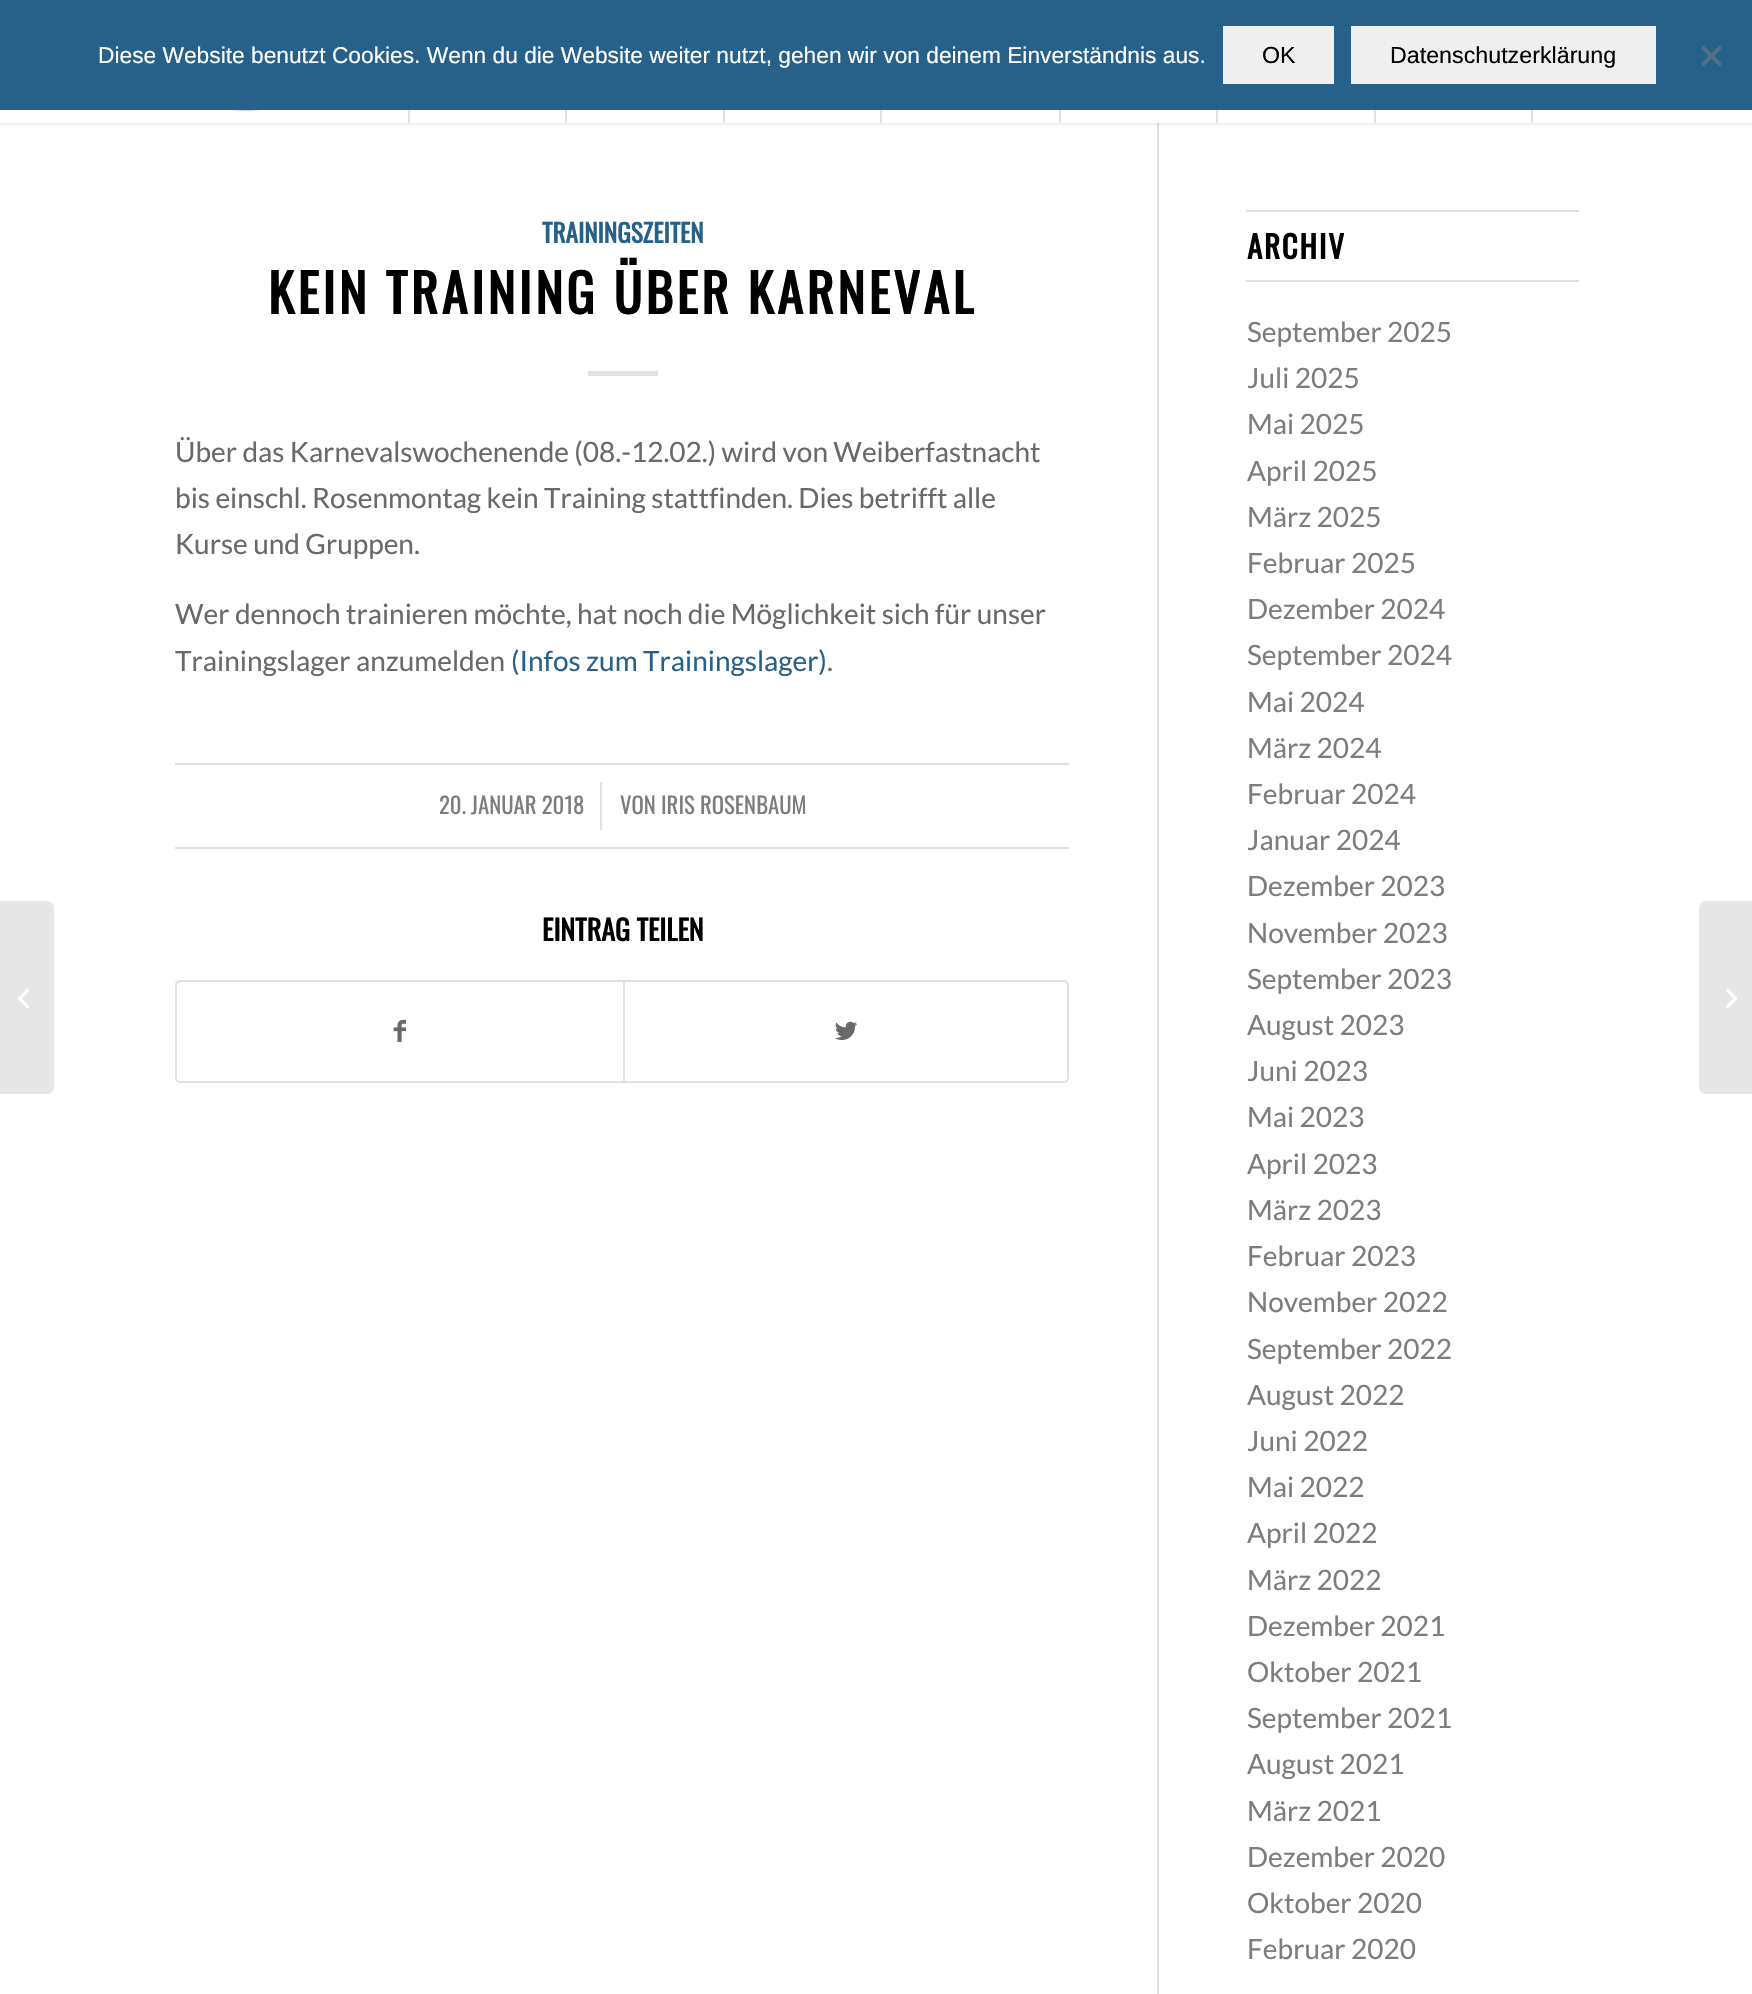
#include "include/core/SkBlurTypes.h"
#include "include/core/SkCanvas.h"
#include "include/core/SkData.h"
#include "include/core/SkFont.h"
#include "include/core/SkFontMgr.h"
#include "include/core/SkImage.h"
#include "include/core/SkMaskFilter.h"
#include "include/core/SkPaint.h"
#include "include/core/SkPathBuilder.h"
#include "include/core/SkTextBlob.h"
#include "include/effects/SkDashPathEffect.h"
#include "include/effects/SkGradientShader.h"
#include "include/utils/SkParsePath.h"

extern sk_sp<SkFontMgr> fontMgr;

static SkFont font(const char* family, int weight, float size, bool italic = false) {
    SkFontStyle style(weight, SkFontStyle::kNormal_Width,
        italic ? SkFontStyle::kItalic_Slant : SkFontStyle::kUpright_Slant);
    SkFont result(fontMgr->matchFamilyStyle(family, style), size);
    result.setSubpixel(true);
    return result;
}

static void drawLabel(SkCanvas* canvas, const char* s, float x, float y, const SkFont& font, SkColor color) {
    SkPaint ink(SkColor4f::FromColor(color));
    ink.setAntiAlias(true);
    canvas->drawString(s, x, y, font, ink);
}

static void drawTracked(SkCanvas* canvas, const char* s, float x, float y, const SkFont& font, const SkPaint& ink, float letter, float word) {
    std::vector<SkGlyphID> glyphs(font.countText(s, strlen(s), SkTextEncoding::kUTF8));
    std::vector<float> xs(glyphs.size());
    font.textToGlyphs(s, strlen(s), SkTextEncoding::kUTF8, glyphs);
    font.getXPos(glyphs, xs, x);
    float extra = 0;
    for (size_t i = 0; i < glyphs.size(); i++) {
        xs[i] += extra;
        extra += letter + word * (glyphs[i] == font.unicharToGlyph(' '));
    }
    canvas->drawTextBlob(SkTextBlob::MakeFromPosHGlyphs(glyphs, xs, y, font), 0, 0, ink);
}

static void fillRect(SkCanvas* canvas, float x, float y, float w, float h, SkColor color) {
    SkPaint ink(SkColor4f::FromColor(color));
    ink.setAntiAlias(true);
    canvas->drawRect(SkRect::MakeXYWH(x, y, w, h), ink);
}

static void drawPhoto(SkCanvas* canvas, const char* path, float x, float y, float w, float h) {
    auto image = SkImages::DeferredFromEncodedData(SkData::MakeFromFileName(path));
    canvas->drawImageRect(image, SkRect::MakeXYWH(x, y, w, h), SkSamplingOptions());
}

static SkPath parsePath(const char* data, bool evenOdd = false) {
    SkPath result = *SkParsePath::FromSVGString(data);
    if (evenOdd) result.setFillType(SkPathFillType::kEvenOdd);
    return result;
}

void draw(SkCanvas* canvas) {
    SkPaint paint;
    paint.setAntiAlias(true);
    canvas->clear(0xFFFFFFFF);
    fillRect(canvas, 1157, 123, 2, 1871, 0xFFE1E1E1);
    paint.setColor(0x1A000000);
    paint.setMaskFilter(SkMaskFilter::MakeBlur(kNormal_SkBlurStyle, 2));
    canvas->drawRect(SkRect::MakeXYWH(-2, -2, 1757, 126), paint);
    paint.setMaskFilter(nullptr);
    fillRect(canvas, 0, 0, 1752, 110, 0xFF276088);
    SkFont font1 = font("Liberation Sans", 400, 22.75f);
    drawLabel(canvas, "Diese Website benutzt Cookies. Wenn du die Website weiter nutzt, gehen wir von deinem Einverständnis aus.", 98, 63, font1, 0xFFFFFFFF);
    fillRect(canvas, 1223, 26, 111, 58, 0xFFEFEFEF);
    SkFont font2 = font("Liberation Sans", 400, 23.25f);
    drawLabel(canvas, "OK", 1262, 63, font2, 0xFF000000);
    fillRect(canvas, 1351, 26, 305, 58, 0xFFEFEFEF);
    drawLabel(canvas, "Datenschutzerklärung", 1390, 63, font2, 0xFF000000);
    paint.setColor(0xFF547084);
    canvas->drawPath(parsePath("M1719.5 45.5L1722 48L1703.5 66.5L1701 64Z"), paint);
    canvas->drawPath(parsePath("M1701 48L1703.5 45.5L1722 64L1719.5 66.5Z"), paint);
    fillRect(canvas, 0, 110, 1752, 13, 0xFFFFFFFF);
    drawPhoto(canvas, "assets/img1.png", 47, 110, 259, 2);
    fillRect(canvas, 408, 110, 2, 13, 0xFFE1E1E1);
    fillRect(canvas, 565, 110, 2, 13, 0xFFE1E1E1);
    fillRect(canvas, 723, 110, 2, 13, 0xFFE1E1E1);
    fillRect(canvas, 880, 110, 2, 13, 0xFFE1E1E1);
    fillRect(canvas, 1059, 110, 2, 13, 0xFFE1E1E1);
    fillRect(canvas, 1216, 110, 2, 13, 0xFFE1E1E1);
    fillRect(canvas, 1531, 110, 2, 13, 0xFFE1E1E1);
    fillRect(canvas, 1374, 110, 2, 13, 0xFFE1E1E1);
    paint.setColor(0xFFE6E6E6);
    canvas->drawPath(parsePath("M0 901H47C51 901 54 904 54 908V1087C54 1091 51 1094 47 1094H0Z"), paint);
    drawPhoto(canvas, "assets/img2.png", 18, 988, 11, 21);
    SkFont font3 = font("Oswald", 700, 25.25f);
    drawLabel(canvas, "TRAININGSZEITEN", 542, 243, font3, 0xFF276088);
    SkFont font4 = font("Oswald", 700, 52.5f);
    paint.setColor(0xFF000000);
    drawTracked(canvas, "KEIN TRAINING ÜBER KARNEVAL", 268, 314, font4, paint, 3.5f, 0);
    fillRect(canvas, 588, 371, 70, 5, 0xFFE1E1E1);
    SkFont font5 = font("Lato", 400, 28);
    drawLabel(canvas, "Über das Karnevalswochenende (08.-12.02.) wird von Weiberfastnacht", 175, 462, font5, 0xFF696969);
    drawLabel(canvas, "bis einschl. Rosenmontag kein Training stattfinden. Dies betrifft alle", 175, 508, font5, 0xFF696969);
    drawLabel(canvas, "Kurse und Gruppen.", 175, 554, font5, 0xFF696969);
    drawLabel(canvas, "Wer dennoch trainieren möchte, hat noch die Möglichkeit sich für unser", 175, 624, font5, 0xFF696969);
    drawLabel(canvas, "Trainingslager anzumelden", 175, 671, font5, 0xFF696969);
    drawLabel(canvas, "(Infos zum Trainingslager)", 511, 671, font5, 0xFF276088);
    drawLabel(canvas, ".", 827, 671, font5, 0xFF696969);
    fillRect(canvas, 175, 763, 894, 2, 0xFFE1E1E1);
    fillRect(canvas, 175, 847, 894, 2, 0xFFE1E1E1);
    SkFont font6 = font("Oswald", 400, 22.75f);
    drawLabel(canvas, "20. JANUAR 2018", 439, 814, font6, 0xFF7D7D7D);
    fillRect(canvas, 600, 782, 2, 48, 0xFFE1E1E1);
    drawLabel(canvas, "VON IRIS ROSENBAUM", 620, 814, font6, 0xFF7D7D7D);
    SkFont font7 = font("Oswald", 700, 28);
    drawLabel(canvas, "EINTRAG TEILEN", 542, 941, font7, 0xFF000000);
    paint.setStroke(true);
    paint.setStrokeWidth(2);
    paint.setColor(0xFFE1E1E1);
    canvas->drawRoundRect(SkRect::MakeXYWH(176, 981, 892, 101), 4, 4, paint);
    drawPhoto(canvas, "assets/img3.png", 393, 1019, 13, 23);
    fillRect(canvas, 623, 982, 2, 100, 0xFFE1E1E1);
    drawPhoto(canvas, "assets/img4.png", 835, 1021, 23, 19);
    fillRect(canvas, 1246, 210, 333, 2, 0xFFE1E1E1);
    fillRect(canvas, 1246, 280, 333, 2, 0xFFE1E1E1);
    SkFont font8 = font("Oswald", 700, 31);
    paint.setStroke(false);
    paint.setColor(0xFF000000);
    drawTracked(canvas, "ARCHIV", 1247, 259, font8, paint, 1.75f, 0);
    drawLabel(canvas, "September 2025", 1247, 342, font5, 0xFF7D7D7D);
    drawLabel(canvas, "Juli 2025", 1247, 388, font5, 0xFF7D7D7D);
    drawLabel(canvas, "Mai 2025", 1247, 434, font5, 0xFF7D7D7D);
    drawLabel(canvas, "April 2025", 1247, 481, font5, 0xFF7D7D7D);
    drawLabel(canvas, "März 2025", 1247, 527, font5, 0xFF7D7D7D);
    drawLabel(canvas, "Februar 2025", 1247, 573, font5, 0xFF7D7D7D);
    drawLabel(canvas, "Dezember 2024", 1247, 619, font5, 0xFF7D7D7D);
    drawLabel(canvas, "September 2024", 1247, 665, font5, 0xFF7D7D7D);
    drawLabel(canvas, "Mai 2024", 1247, 712, font5, 0xFF7D7D7D);
    drawLabel(canvas, "März 2024", 1247, 758, font5, 0xFF7D7D7D);
    drawLabel(canvas, "Februar 2024", 1247, 804, font5, 0xFF7D7D7D);
    drawLabel(canvas, "Januar 2024", 1247, 850, font5, 0xFF7D7D7D);
    drawLabel(canvas, "Dezember 2023", 1247, 896, font5, 0xFF7D7D7D);
    drawLabel(canvas, "November 2023", 1247, 943, font5, 0xFF7D7D7D);
    drawLabel(canvas, "September 2023", 1247, 989, font5, 0xFF7D7D7D);
    drawLabel(canvas, "August 2023", 1247, 1035, font5, 0xFF7D7D7D);
    drawLabel(canvas, "Juni 2023", 1247, 1081, font5, 0xFF7D7D7D);
    drawLabel(canvas, "Mai 2023", 1247, 1127, font5, 0xFF7D7D7D);
    drawLabel(canvas, "April 2023", 1247, 1174, font5, 0xFF7D7D7D);
    drawLabel(canvas, "März 2023", 1247, 1220, font5, 0xFF7D7D7D);
    drawLabel(canvas, "Februar 2023", 1247, 1266, font5, 0xFF7D7D7D);
    drawLabel(canvas, "November 2022", 1247, 1312, font5, 0xFF7D7D7D);
    drawLabel(canvas, "September 2022", 1247, 1359, font5, 0xFF7D7D7D);
    drawLabel(canvas, "August 2022", 1247, 1405, font5, 0xFF7D7D7D);
    drawLabel(canvas, "Juni 2022", 1247, 1451, font5, 0xFF7D7D7D);
    drawLabel(canvas, "Mai 2022", 1247, 1497, font5, 0xFF7D7D7D);
    drawLabel(canvas, "April 2022", 1247, 1543, font5, 0xFF7D7D7D);
    drawLabel(canvas, "März 2022", 1247, 1590, font5, 0xFF7D7D7D);
    drawLabel(canvas, "Dezember 2021", 1247, 1636, font5, 0xFF7D7D7D);
    drawLabel(canvas, "Oktober 2021", 1247, 1682, font5, 0xFF7D7D7D);
    drawLabel(canvas, "September 2021", 1247, 1728, font5, 0xFF7D7D7D);
    drawLabel(canvas, "August 2021", 1247, 1774, font5, 0xFF7D7D7D);
    drawLabel(canvas, "März 2021", 1247, 1821, font5, 0xFF7D7D7D);
    drawLabel(canvas, "Dezember 2020", 1247, 1867, font5, 0xFF7D7D7D);
    drawLabel(canvas, "Oktober 2020", 1247, 1913, font5, 0xFF7D7D7D);
    drawLabel(canvas, "Februar 2020", 1247, 1959, font5, 0xFF7D7D7D);
    paint.setColor(0xFFE6E6E6);
    canvas->drawPath(parsePath("M1706 901H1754V1094H1706C1702 1094 1699 1091 1699 1087V908C1699 904 1702 901 1706 901Z"), paint);
    drawPhoto(canvas, "assets/img5.png", 1726, 988, 11, 21);
}
